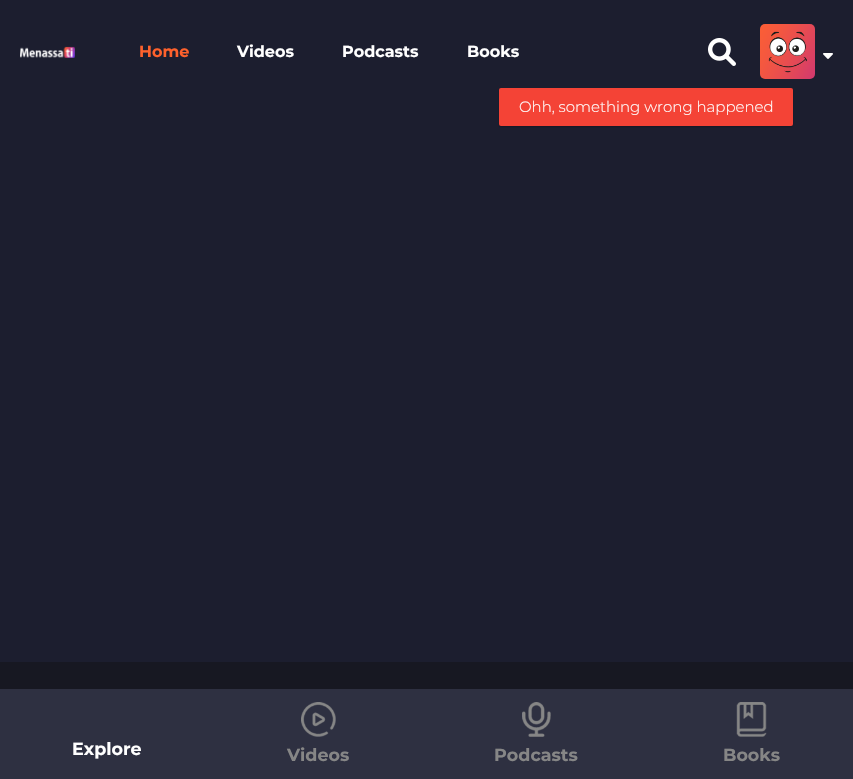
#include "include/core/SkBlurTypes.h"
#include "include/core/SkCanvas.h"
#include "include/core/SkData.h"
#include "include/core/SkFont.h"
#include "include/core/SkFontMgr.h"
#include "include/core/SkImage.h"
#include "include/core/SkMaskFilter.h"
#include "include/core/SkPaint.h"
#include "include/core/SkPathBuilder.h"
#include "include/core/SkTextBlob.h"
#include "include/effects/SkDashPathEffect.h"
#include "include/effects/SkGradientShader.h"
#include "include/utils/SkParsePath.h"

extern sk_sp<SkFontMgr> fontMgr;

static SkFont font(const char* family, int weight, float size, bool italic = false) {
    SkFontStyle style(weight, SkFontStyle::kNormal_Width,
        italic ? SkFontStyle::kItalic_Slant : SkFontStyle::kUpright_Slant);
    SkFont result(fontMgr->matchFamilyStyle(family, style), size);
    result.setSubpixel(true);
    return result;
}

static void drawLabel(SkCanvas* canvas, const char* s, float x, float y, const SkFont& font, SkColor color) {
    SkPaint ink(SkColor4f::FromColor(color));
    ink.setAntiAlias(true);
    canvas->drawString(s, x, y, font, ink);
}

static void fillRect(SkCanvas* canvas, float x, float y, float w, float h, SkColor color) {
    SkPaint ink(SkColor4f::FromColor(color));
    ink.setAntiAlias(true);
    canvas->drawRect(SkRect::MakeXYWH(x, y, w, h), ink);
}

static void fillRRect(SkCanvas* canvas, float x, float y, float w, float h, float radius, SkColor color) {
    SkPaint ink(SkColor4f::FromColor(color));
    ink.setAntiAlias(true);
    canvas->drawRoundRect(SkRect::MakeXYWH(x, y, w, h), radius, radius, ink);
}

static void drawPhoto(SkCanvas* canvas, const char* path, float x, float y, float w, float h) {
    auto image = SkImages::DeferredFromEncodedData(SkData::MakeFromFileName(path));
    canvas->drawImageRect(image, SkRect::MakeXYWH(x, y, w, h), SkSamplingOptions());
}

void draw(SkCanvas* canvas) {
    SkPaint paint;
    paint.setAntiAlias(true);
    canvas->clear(0xFF171822);
    fillRect(canvas, 0, 0, 853, 662, 0xFF1C1E2F);
    drawPhoto(canvas, "assets/img1.png", 20, 46, 55, 12);
    SkFont font1 = font("Montserrat", 700, 16);
    drawLabel(canvas, "Home", 139, 57, font1, 0xFFFE612C);
    drawLabel(canvas, "Videos", 237, 57, font1, 0xFFFFFFFF);
    drawLabel(canvas, "Podcasts", 342, 57, font1, 0xFFFFFFFF);
    drawLabel(canvas, "Books", 467, 57, font1, 0xFFFFFFFF);
    drawPhoto(canvas, "assets/img2.png", 708, 38, 28, 28);
    drawPhoto(canvas, "assets/img3.png", 760, 24, 55, 55);
    drawPhoto(canvas, "assets/img4.png", 823, 53, 10, 6);
    fillRect(canvas, 0, 689, 853, 90, 0xFF2E3041);
    SkFont font2 = font("Montserrat", 700, 17.5f);
    drawLabel(canvas, "Explore", 72, 755, font2, 0xFFFFFFFF);
    drawPhoto(canvas, "assets/img5.png", 301, 702, 35, 35);
    drawLabel(canvas, "Videos", 287, 761, font2, 0xFF868686);
    drawPhoto(canvas, "assets/img6.png", 522, 702, 29, 35);
    drawLabel(canvas, "Podcasts", 494, 761, font2, 0xFF868686);
    drawPhoto(canvas, "assets/img7.png", 736, 702, 31, 35);
    drawLabel(canvas, "Books", 723, 761, font2, 0xFF868686);
    paint.setColor(0x3D000000);
    paint.setMaskFilter(SkMaskFilter::MakeBlur(kNormal_SkBlurStyle, 1));
    canvas->drawRoundRect(SkRect::MakeXYWH(499, 89, 294, 38), 2, 2, paint);
    paint.setMaskFilter(nullptr);
    fillRRect(canvas, 499, 88, 294, 38, 2, 0xFFF44336);
    SkFont font3 = font("Montserrat", 300, 15);
    drawLabel(canvas, "Ohh, something wrong happened", 519, 112, font3, 0xFFFFFFFF);
}
